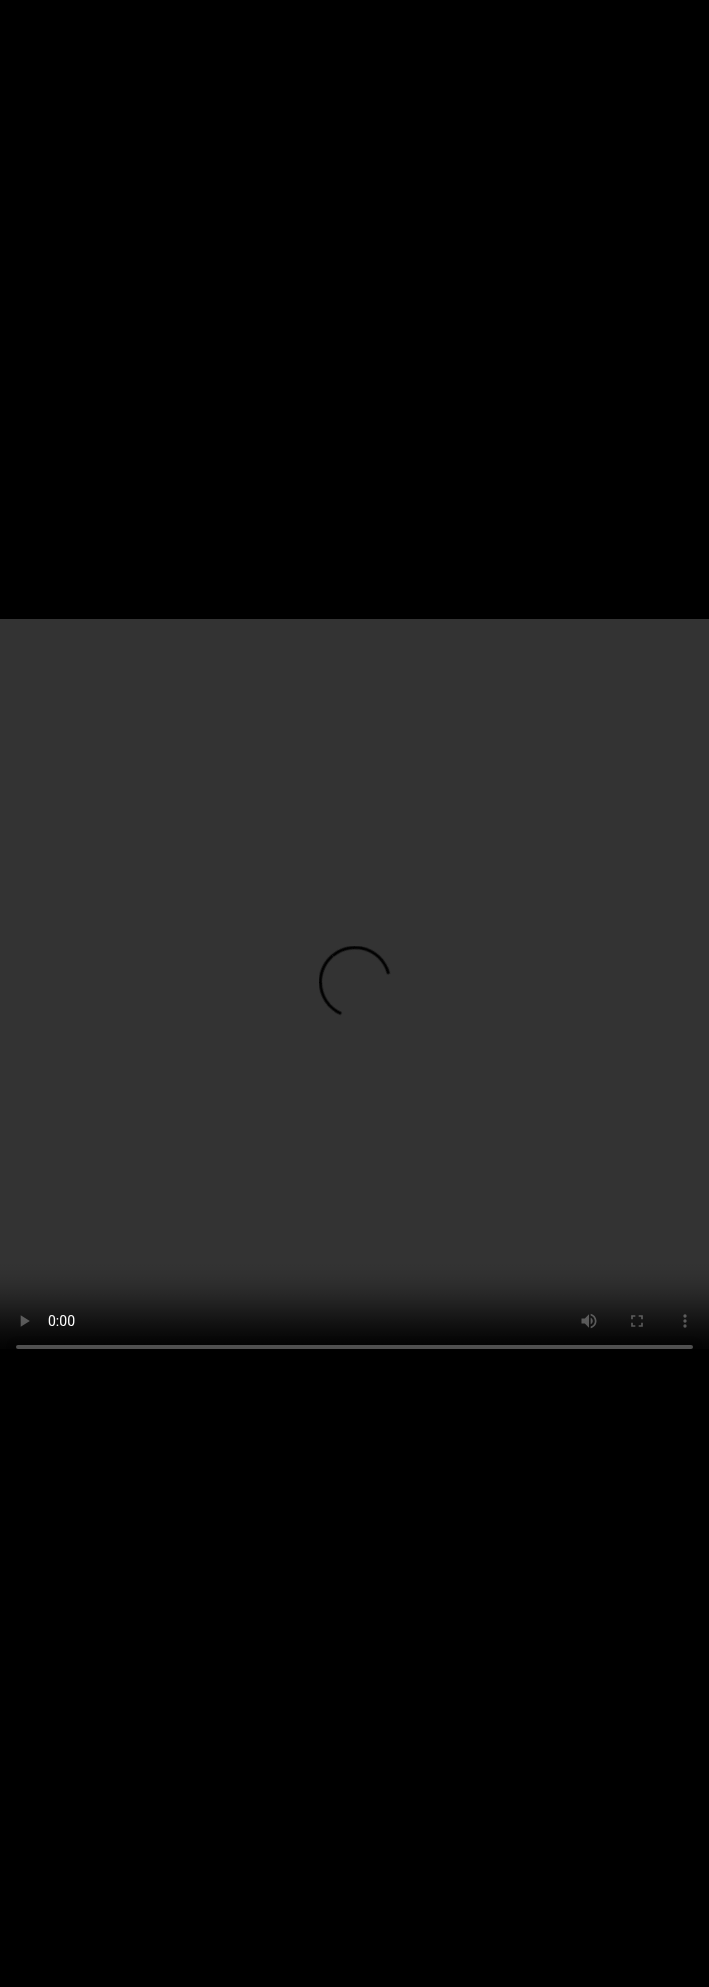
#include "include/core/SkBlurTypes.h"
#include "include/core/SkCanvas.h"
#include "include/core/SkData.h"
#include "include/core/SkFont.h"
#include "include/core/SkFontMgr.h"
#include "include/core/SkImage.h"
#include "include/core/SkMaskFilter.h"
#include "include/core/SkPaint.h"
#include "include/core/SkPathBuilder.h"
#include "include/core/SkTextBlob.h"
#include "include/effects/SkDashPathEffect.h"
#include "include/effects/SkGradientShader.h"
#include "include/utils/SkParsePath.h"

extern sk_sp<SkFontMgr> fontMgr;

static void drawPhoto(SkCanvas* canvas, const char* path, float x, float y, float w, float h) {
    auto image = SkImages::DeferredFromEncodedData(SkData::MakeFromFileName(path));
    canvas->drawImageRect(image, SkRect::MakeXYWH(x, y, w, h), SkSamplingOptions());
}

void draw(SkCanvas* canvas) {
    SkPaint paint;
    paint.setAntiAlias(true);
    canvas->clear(0xFF000000);
    drawPhoto(canvas, "assets/img1.png", 0, 619, 709, 730);
}
